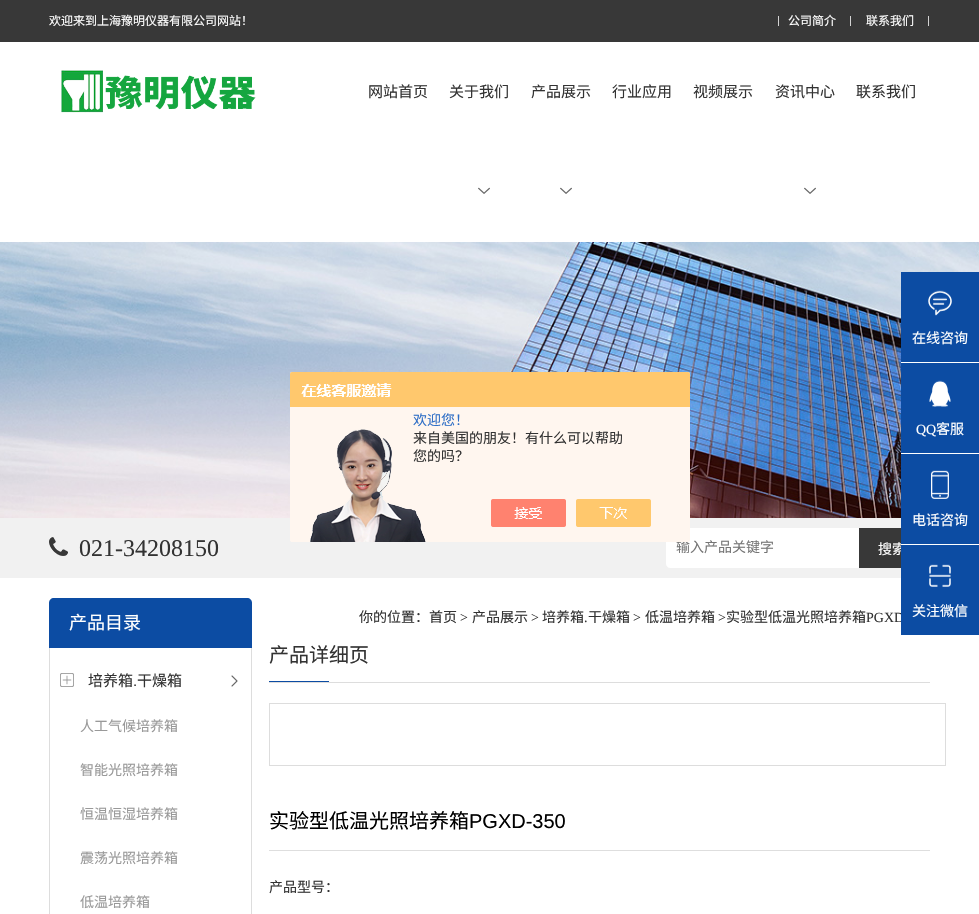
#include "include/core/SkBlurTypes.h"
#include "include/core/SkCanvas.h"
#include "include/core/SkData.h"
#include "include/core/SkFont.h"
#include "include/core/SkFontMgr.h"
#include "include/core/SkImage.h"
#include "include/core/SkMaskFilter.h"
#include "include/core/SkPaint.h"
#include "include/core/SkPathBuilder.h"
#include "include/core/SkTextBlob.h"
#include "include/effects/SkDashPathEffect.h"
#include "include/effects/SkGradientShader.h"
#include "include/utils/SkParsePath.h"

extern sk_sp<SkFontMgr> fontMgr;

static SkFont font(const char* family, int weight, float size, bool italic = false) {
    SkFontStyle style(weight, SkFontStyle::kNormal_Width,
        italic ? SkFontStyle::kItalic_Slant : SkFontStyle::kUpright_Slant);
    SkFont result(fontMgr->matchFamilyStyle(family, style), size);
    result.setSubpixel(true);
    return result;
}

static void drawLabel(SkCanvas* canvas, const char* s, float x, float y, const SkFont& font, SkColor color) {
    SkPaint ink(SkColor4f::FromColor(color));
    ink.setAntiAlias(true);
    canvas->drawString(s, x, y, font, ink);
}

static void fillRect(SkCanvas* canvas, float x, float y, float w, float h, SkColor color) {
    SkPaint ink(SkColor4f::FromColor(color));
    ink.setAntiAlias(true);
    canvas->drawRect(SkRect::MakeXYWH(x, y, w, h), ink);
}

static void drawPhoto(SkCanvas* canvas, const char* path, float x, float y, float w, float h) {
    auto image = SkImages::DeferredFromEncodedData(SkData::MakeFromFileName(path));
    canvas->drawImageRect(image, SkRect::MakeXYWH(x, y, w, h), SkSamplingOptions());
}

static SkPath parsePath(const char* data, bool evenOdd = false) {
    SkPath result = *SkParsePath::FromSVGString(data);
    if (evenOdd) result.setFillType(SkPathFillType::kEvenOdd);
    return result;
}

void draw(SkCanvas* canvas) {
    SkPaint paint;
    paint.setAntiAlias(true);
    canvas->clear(0xFFFFFFFF);
    fillRect(canvas, 0, 0, 979, 42, 0xFF383838);
    SkFont font1 = font("Noto Sans CJK SC", 400, 12);
    drawLabel(canvas, "欢迎来到上海豫明仪器有限公司网站！", 49, 25, font1, 0xFFFFFFFF);
    fillRect(canvas, 778, 16, 1, 10, 0xFFD3D3D3);
    drawLabel(canvas, "公司简介", 788, 25, font1, 0xFFFFFFFF);
    fillRect(canvas, 850, 16, 1, 10, 0xFFD3D3D3);
    drawLabel(canvas, "联系我们", 866, 25, font1, 0xFFFFFFFF);
    fillRect(canvas, 928, 16, 1, 10, 0xFFD3D3D3);
    drawPhoto(canvas, "assets/img1.png", 61, 70, 195, 43);
    SkFont font2 = font("Noto Sans CJK SC", 400, 15);
    drawLabel(canvas, "网站首页", 368, 97, font2, 0xFF333333);
    drawLabel(canvas, "关于我们", 449, 97, font2, 0xFF333333);
    drawPhoto(canvas, "assets/img2.png", 478, 187, 12, 7);
    drawLabel(canvas, "产品展示", 531, 97, font2, 0xFF333333);
    drawPhoto(canvas, "assets/img2.png", 560, 187, 12, 7);
    drawLabel(canvas, "行业应用", 612, 97, font2, 0xFF333333);
    drawLabel(canvas, "视频展示", 693, 97, font2, 0xFF333333);
    drawLabel(canvas, "资讯中心", 775, 97, font2, 0xFF333333);
    drawPhoto(canvas, "assets/img2.png", 804, 187, 12, 7);
    drawLabel(canvas, "联系我们", 856, 97, font2, 0xFF333333);
    drawPhoto(canvas, "assets/img3.png", 0, 242, 979, 276);
    fillRect(canvas, 0, 518, 901, 60, 0xFFF1F1F1);
    paint.setColor(0xFFFFFFFF);
    canvas->drawPath(parsePath("M666 528H859V568H670C668 568 666 566 666 564Z"), paint);
    SkFont font3 = font("Noto Sans CJK SC", 400, 14);
    drawLabel(canvas, "输入产品关键字", 676, 552, font3, 0xFF757575);
    drawPhoto(canvas, "assets/img4.png", 290, 372, 400, 170);
    drawLabel(canvas, "欢迎您！", 413, 425, font3, 0xFF2E6EC6);
    drawLabel(canvas, "来自美国的朋友！有什么可以帮助", 413, 443, font3, 0xFF333333);
    drawLabel(canvas, "您的吗？", 413, 461, font3, 0xFF333333);
    fillRect(canvas, 859, 528, 42, 40, 0xFF383838);
    drawLabel(canvas, "搜索", 878, 554, font3, 0xFFFFFFFF);
    SkFont font4 = font("Liberation Serif", 400, 14);
    drawLabel(canvas, "PGXD", 866, 622, font4, 0xFF333333);
    fillRect(canvas, 901, 272, 78, 363, 0xFF0C4CA3);
    drawPhoto(canvas, "assets/img5.png", 928, 290, 24, 26);
    drawLabel(canvas, "在线咨询", 912, 343, font3, 0xFFFFFFFF);
    fillRect(canvas, 901, 362, 78, 1, 0xFFFFFFFF);
    drawPhoto(canvas, "assets/img6.png", 929, 380, 22, 27);
    drawLabel(canvas, "QQ", 916, 434, font4, 0xFFFFFFFF);
    drawLabel(canvas, "客服", 936, 434, font3, 0xFFFFFFFF);
    fillRect(canvas, 901, 453, 78, 1, 0xFFFFFFFF);
    drawPhoto(canvas, "assets/img7.png", 931, 470, 18, 29);
    drawLabel(canvas, "电话咨询", 912, 525, font3, 0xFFFFFFFF);
    fillRect(canvas, 901, 544, 78, 1, 0xFFFFFFFF);
    drawPhoto(canvas, "assets/img8.png", 929, 564, 22, 23);
    drawLabel(canvas, "关注微信", 912, 616, font3, 0xFFFFFFFF);
    drawPhoto(canvas, "assets/img9.png", 49, 537, 19, 19);
    SkFont font5 = font("Liberation Serif", 400, 24);
    drawLabel(canvas, "021-34208150", 79, 556, font5, 0xFF333333);
    paint.setColor(0xFF0C4CA3);
    canvas->drawPath(parsePath("M54 598H247C250 598 252 600 252 603V648H49V603C49 600 51 598 54 598Z"), paint);
    SkFont font6 = font("Noto Sans CJK SC", 400, 18);
    drawLabel(canvas, "产品目录", 69, 629, font6, 0xFFFFFFFF);
    fillRect(canvas, 251, 648, 1, 266, 0xFFDDDDDD);
    fillRect(canvas, 49, 648, 1, 266, 0xFFDDDDDD);
    drawPhoto(canvas, "assets/img10.png", 60, 673, 14, 14);
    drawLabel(canvas, "培养箱", 88, 686, font2, 0xFF333333);
    SkFont font7 = font("Liberation Sans", 400, 15);
    drawLabel(canvas, ".", 133, 686, font7, 0xFF333333);
    drawLabel(canvas, "干燥箱", 137, 686, font2, 0xFF333333);
    drawPhoto(canvas, "assets/img11.png", 231, 675, 7, 12);
    drawLabel(canvas, "人工气候培养箱", 80, 731, font3, 0xFF999999);
    drawLabel(canvas, "智能光照培养箱", 80, 775, font3, 0xFF999999);
    drawLabel(canvas, "恒温恒湿培养箱", 80, 819, font3, 0xFF999999);
    drawLabel(canvas, "震荡光照培养箱", 80, 863, font3, 0xFF999999);
    drawLabel(canvas, "低温培养箱", 80, 907, font3, 0xFF999999);
    fillRect(canvas, 269, 682, 661, 1, 0xFFDDDDDD);
    drawLabel(canvas, "你的位置：首页", 359, 622, font3, 0xFF333333);
    drawLabel(canvas, ">", 460, 622, font4, 0xFF333333);
    drawLabel(canvas, "产品展示", 472, 622, font3, 0xFF333333);
    drawLabel(canvas, ">", 531, 622, font4, 0xFF333333);
    drawLabel(canvas, "培养箱", 542, 622, font3, 0xFF333333);
    drawLabel(canvas, "干燥箱", 588, 622, font3, 0xFF333333);
    drawLabel(canvas, ">", 633, 622, font4, 0xFF333333);
    drawLabel(canvas, "低温培养箱", 645, 622, font3, 0xFF333333);
    drawLabel(canvas, ">", 718, 622, font4, 0xFF333333);
    drawLabel(canvas, "实验型低温光照培养箱", 726, 622, font3, 0xFF333333);
    drawLabel(canvas, ".", 584, 622, font4, 0xFF333333);
    SkFont font8 = font("Noto Sans CJK SC", 400, 20);
    drawLabel(canvas, "产品详细页", 269, 662, font8, 0xFF333333);
    fillRect(canvas, 269, 681, 60, 1, 0xFF0C4CA3);
    paint.setStroke(true);
    paint.setStrokeWidth(1);
    paint.setColor(0xFFDDDDDD);
    canvas->drawRect(SkRect::MakeXYWH(269.5f, 703.5f, 676, 62), paint);
    fillRect(canvas, 269, 850, 661, 1, 0xFFDEDEDE);
    drawLabel(canvas, "实验型低温光照培养箱", 269, 828, font8, 0xFF000000);
    SkFont font9 = font("Liberation Sans", 400, 20);
    drawLabel(canvas, "PGXD-350", 469, 828, font9, 0xFF000000);
    drawLabel(canvas, "产品型号：", 269, 892, font3, 0xFF333333);
}
